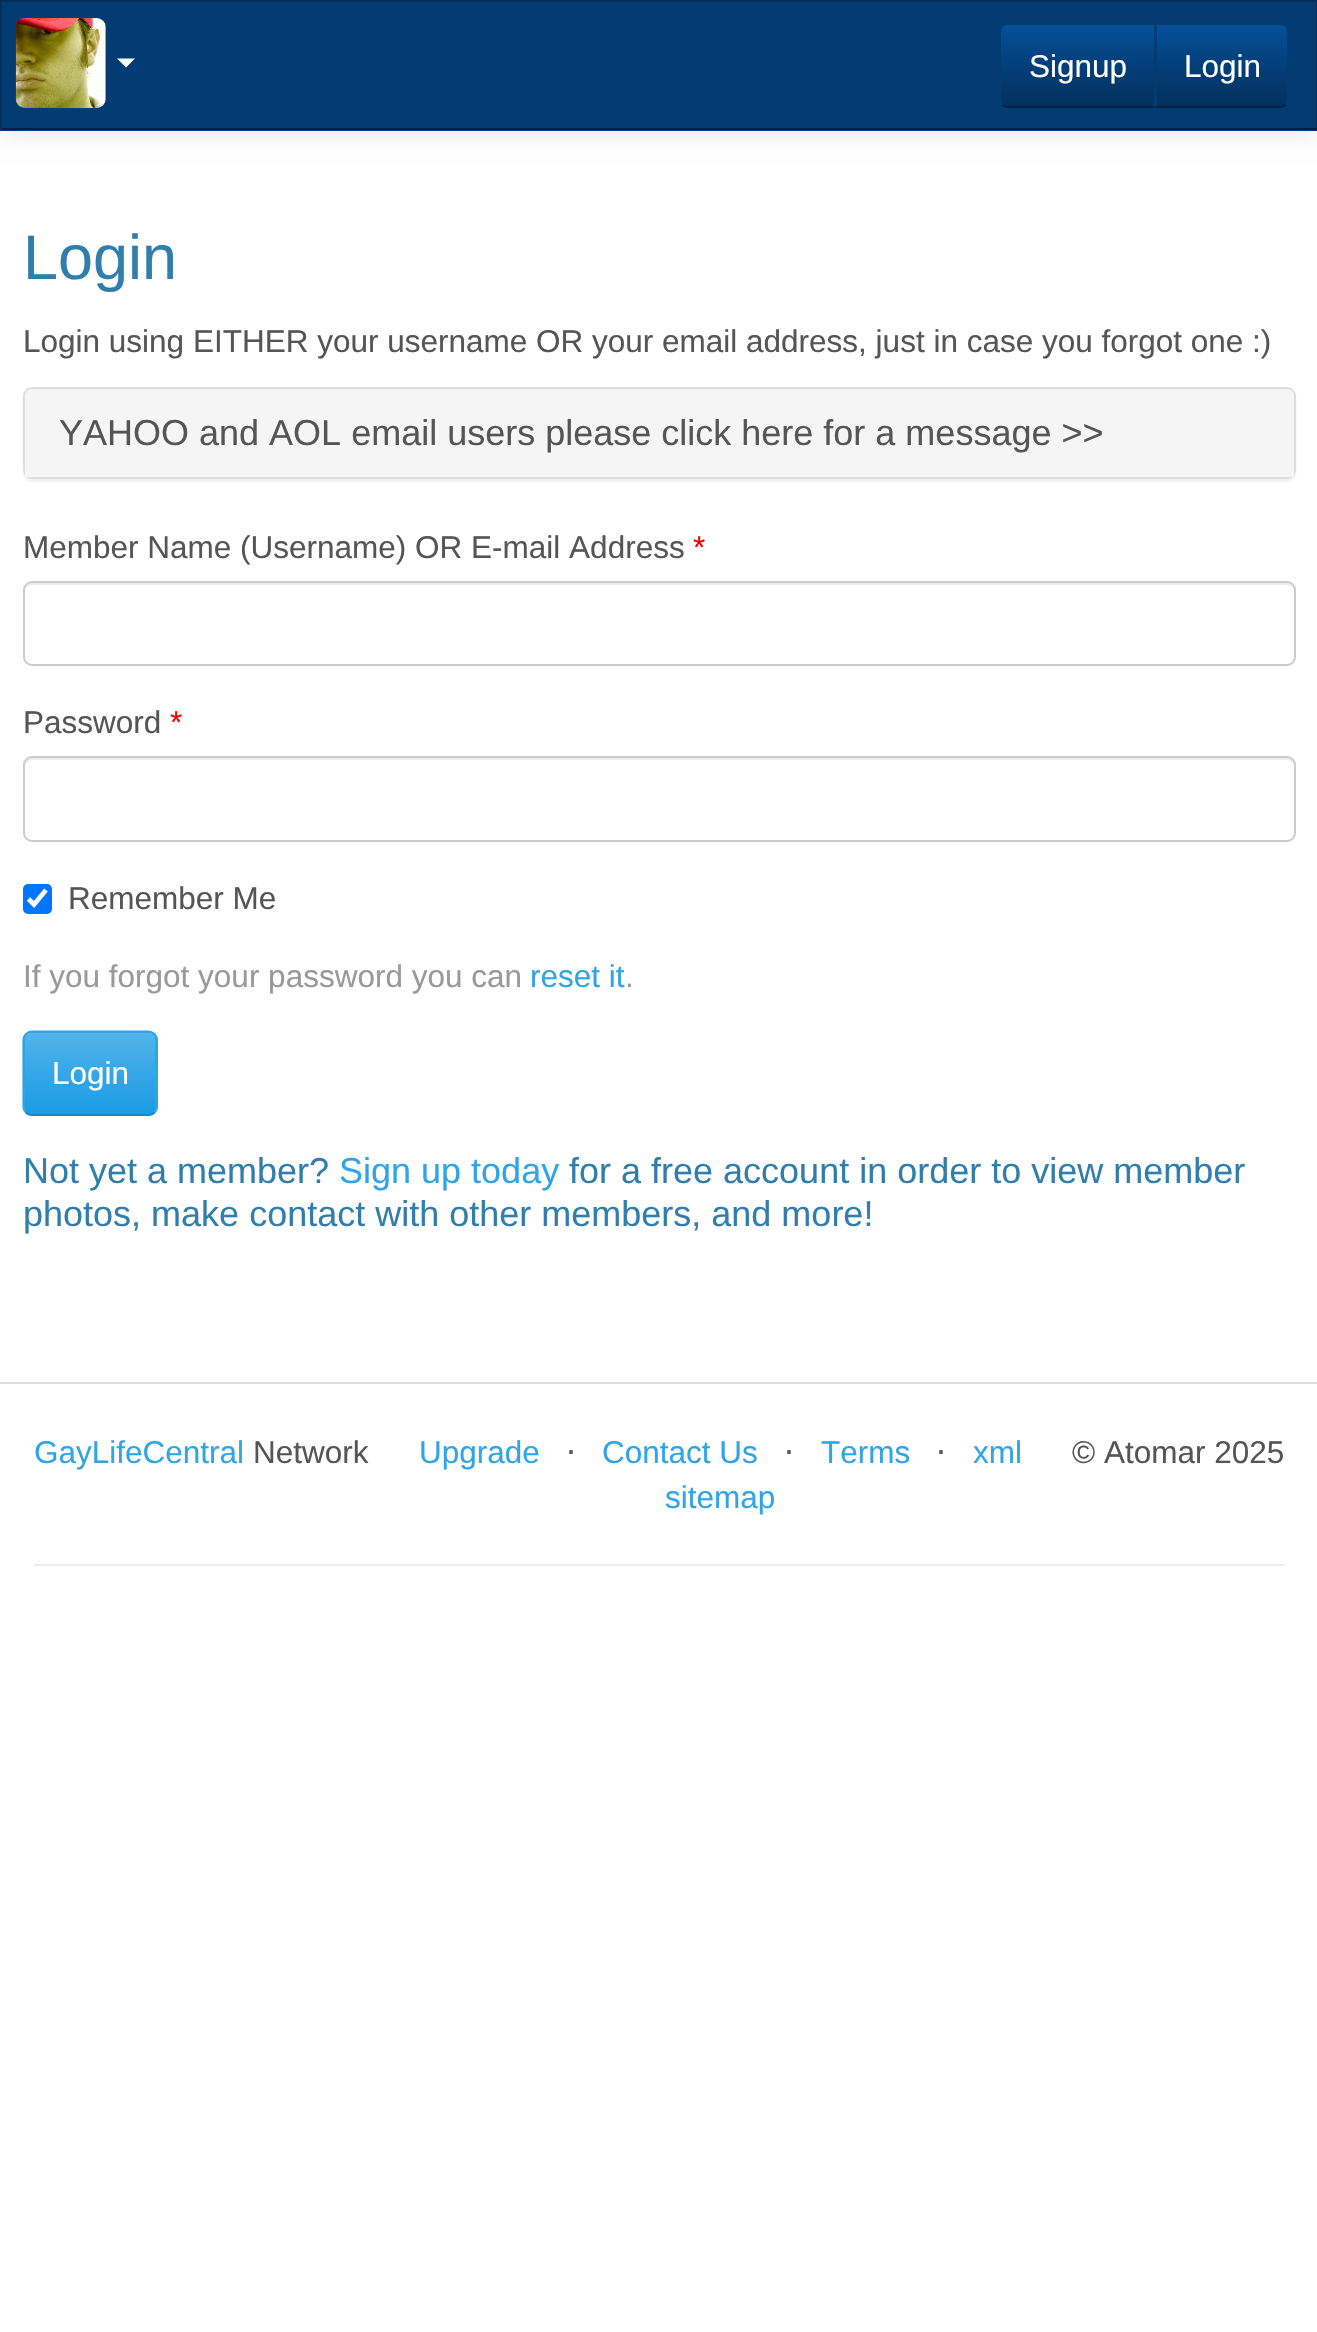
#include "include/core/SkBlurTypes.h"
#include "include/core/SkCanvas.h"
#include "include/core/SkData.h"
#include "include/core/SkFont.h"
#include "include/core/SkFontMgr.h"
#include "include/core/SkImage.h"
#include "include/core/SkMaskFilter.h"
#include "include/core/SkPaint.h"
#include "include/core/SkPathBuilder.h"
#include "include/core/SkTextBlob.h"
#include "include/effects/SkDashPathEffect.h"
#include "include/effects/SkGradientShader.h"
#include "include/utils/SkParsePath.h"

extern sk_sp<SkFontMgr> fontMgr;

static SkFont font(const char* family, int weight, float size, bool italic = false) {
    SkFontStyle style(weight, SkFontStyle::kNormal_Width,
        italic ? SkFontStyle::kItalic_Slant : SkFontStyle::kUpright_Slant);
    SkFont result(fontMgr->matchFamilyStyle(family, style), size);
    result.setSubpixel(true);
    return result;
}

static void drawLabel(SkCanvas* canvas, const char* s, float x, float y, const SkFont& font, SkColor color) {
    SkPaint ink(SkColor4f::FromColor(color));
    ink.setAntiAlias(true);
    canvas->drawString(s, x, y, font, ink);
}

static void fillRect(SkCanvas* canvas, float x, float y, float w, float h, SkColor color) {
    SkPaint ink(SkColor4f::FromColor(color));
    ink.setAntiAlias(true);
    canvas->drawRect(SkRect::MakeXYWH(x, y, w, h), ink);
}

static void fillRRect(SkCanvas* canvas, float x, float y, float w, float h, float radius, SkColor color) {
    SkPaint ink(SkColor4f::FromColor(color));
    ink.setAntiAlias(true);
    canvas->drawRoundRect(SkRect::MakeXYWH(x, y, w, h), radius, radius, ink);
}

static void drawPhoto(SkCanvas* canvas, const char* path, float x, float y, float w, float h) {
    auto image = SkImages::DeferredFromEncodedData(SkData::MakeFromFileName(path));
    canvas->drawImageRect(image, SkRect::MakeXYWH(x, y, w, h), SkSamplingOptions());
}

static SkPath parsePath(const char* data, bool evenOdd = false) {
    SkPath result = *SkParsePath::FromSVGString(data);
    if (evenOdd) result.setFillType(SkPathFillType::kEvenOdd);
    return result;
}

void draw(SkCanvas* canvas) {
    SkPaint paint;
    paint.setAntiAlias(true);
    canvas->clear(0xFFFFFFFF);
    paint.setColor(0x1A000000);
    paint.setMaskFilter(SkMaskFilter::MakeBlur(kNormal_SkBlurStyle, 11));
    canvas->drawRect(SkRect::MakeXYWH(0, 2, 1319, 131), paint);
    paint.setMaskFilter(nullptr);
    fillRect(canvas, 2, 2, 1314, 129, 0xFF033C73);
    fillRect(canvas, 0, 0, 1317, 2, 0xFF022F5A);
    fillRect(canvas, 1316, 0, 1, 131, 0xFF022F5A);
    fillRect(canvas, 0, 128, 1317, 2, 0xFF022241);
    fillRect(canvas, 0, 0, 2, 131, 0xFF022F5A);
    drawPhoto(canvas, "assets/img1.png", 15, 18, 91, 90);
    paint.setColor(0xFFFFFFFF);
    canvas->drawPath(parsePath("M117 58.5H135L126 67.5Z"), paint);
    canvas->save();
    canvas->clipPath(parsePath("M1008 23H1157V108H1008C1003 108 999 104 999 99V32C999 27 1003 23 1008 23Z"), true);
    {
        const SkColor colors[] = {0xFF04519B, 0xFF033C73, 0xFF02325F};
        const float stops[] = {0, 0.6f, 1};
        const SkPoint ends[] = {{1078, 25}, {1078, 106}};
        paint.setShader(SkGradientShader::MakeLinear(ends, colors, stops, 3, SkTileMode::kClamp));
        paint.setAlpha(255);
    }
    canvas->drawRect(SkRect::MakeXYWH(1001, 25, 153, 81), paint);
    canvas->restore();
    paint.setShader(nullptr);
    paint.setColor(0xFF033C73);
    canvas->drawPath(parsePath("M1008 25C1006 25 1004 26 1003 27L1002 25L1005 22H1156L1154 25Z"), paint);
    paint.setColor(0xFF022241);
    canvas->drawPath(parsePath("M1008 108H1156L1154 106H1008C1006 106 1004 105 1003 104L1002 105C1003 107 1006 108 1008 108Z"), paint);
    paint.setColor(0xFF033C73);
    canvas->drawPath(parsePath("M999 32V99C999 102 1000 104 1002 105L1003 104C1002 103 1001 101 1001 99V32C1001 30 1002 28 1003 27L1002 25C1000 27 999 30 999 32Z"), paint);
    SkFont font1 = font("Liberation Sans", 400, 31.5f);
    drawLabel(canvas, "Signup", 1029, 77, font1, 0xFFFFFFFF);
    canvas->drawPath(parsePath("M1154 23H1280C1285 23 1289 27 1289 32V99C1289 104 1285 108 1280 108H1154Z"), paint);
    canvas->save();
    canvas->clipPath(parsePath("M1154 23H1280C1285 23 1289 27 1289 32V99C1289 104 1285 108 1280 108H1154Z"), true);
    {
        const SkColor colors[] = {0xFF04519B, 0xFF033C73, 0xFF02325F};
        const float stops[] = {0, 0.6f, 1};
        const SkPoint ends[] = {{1222, 25}, {1222, 106}};
        paint.setShader(SkGradientShader::MakeLinear(ends, colors, stops, 3, SkTileMode::kClamp));
        paint.setAlpha(255);
    }
    canvas->drawRect(SkRect::MakeXYWH(1157, 25, 130, 81), paint);
    canvas->restore();
    paint.setShader(nullptr);
    paint.setColor(0xFF033C73);
    canvas->drawPath(parsePath("M1154 22H1283L1286 25L1285 27L1281 25H1157Z"), paint);
    canvas->drawPath(parsePath("M1286 25C1288 27 1289 30 1289 32V99C1289 101 1288 104 1286 105L1285 104C1286 103 1287 101 1287 99V32C1287 30 1286 28 1285 27Z"), paint);
    paint.setColor(0xFF022241);
    canvas->drawPath(parsePath("M1154 108H1280C1283 108 1285 107 1286 105L1285 104L1281 106H1156Z"), paint);
    paint.setColor(0xFF033C73);
    canvas->drawPath(parsePath("M1156 25H1157L1154 22V108L1156 106Z"), paint);
    drawLabel(canvas, "Login", 1184, 77, font1, 0xFFFFFFFF);
    SkFont font2 = font("Liberation Sans", 400, 63);
    drawLabel(canvas, "Login", 23, 279, font2, 0xFF317EAC);
    drawLabel(canvas, "Login using EITHER your username OR your email address, just in case you forgot one :)", 23, 352, font1, 0xFF555555);
    paint.setColor(0x0D000000);
    paint.setMaskFilter(SkMaskFilter::MakeBlur(kNormal_SkBlurStyle, 1));
    canvas->drawRoundRect(SkRect::MakeXYWH(23, 389, 1273, 93), 9, 9, paint);
    paint.setMaskFilter(nullptr);
    paint.setStroke(true);
    paint.setStrokeWidth(2);
    paint.setColor(0xFFDDDDDD);
    canvas->drawRoundRect(SkRect::MakeXYWH(24, 388, 1271, 90), 8, 8, paint);
    paint.setStroke(false);
    paint.setColor(0xFFF5F5F5);
    canvas->drawPath(parsePath("M32 389H1287C1291 389 1294 392 1294 396V477H25V396C25 392 28 389 32 389Z"), paint);
    SkFont font3 = font("Liberation Sans", 400, 36);
    drawLabel(canvas, "YAHOO and AOL email users please click here for a message >>", 59, 445, font3, 0xFF555555);
    drawLabel(canvas, "Member Name (Username) OR E-mail Address", 23, 558, font1, 0xFF555555);
    drawLabel(canvas, "*", 693, 558, font1, 0xFFFF0000);
    paint.setColor(0xFFECECEC);
    canvas->drawPath(parsePath("M32 585H1287C1291 585 1294 588 1294 592C1294 588 1292 583 1287 583H31L27 585L26 587L25 592C25 588 28 585 32 585Z"), paint);
    paint.setStroke(true);
    paint.setColor(0xFFCCCCCC);
    canvas->drawRoundRect(SkRect::MakeXYWH(24, 582, 1271, 83), 8, 8, paint);
    drawLabel(canvas, "Password", 23, 733, font1, 0xFF555555);
    drawLabel(canvas, "*", 170, 733, font1, 0xFFFF0000);
    paint.setStroke(false);
    paint.setColor(0xFFECECEC);
    canvas->drawPath(parsePath("M32 760H1287C1291 760 1294 764 1294 767C1294 763 1292 758 1287 758H31L27 760L26 762L25 767C25 764 28 760 32 760Z"), paint);
    paint.setStroke(true);
    paint.setColor(0xFFCCCCCC);
    canvas->drawRoundRect(SkRect::MakeXYWH(24, 757, 1271, 84), 8, 8, paint);
    fillRRect(canvas, 23, 884, 29, 30, 5, 0xFF0075FF);
    paint.setStrokeWidth(4.7f);
    paint.setColor(0xFFFFFFFF);
    canvas->drawPath(parsePath("M28.5 899L34 904.5L46 890"), paint);
    drawLabel(canvas, "Remember Me", 68, 909, font1, 0xFF555555);
    drawLabel(canvas, "If you forgot your password you can", 23, 987, font1, 0xFF999999);
    drawLabel(canvas, "reset it", 530, 987, font1, 0xFF2FA4E7);
    drawLabel(canvas, ".", 625, 987, font1, 0xFF999999);
    fillRRect(canvas, 23, 1031, 135, 85, 9, 0xFF2FA4E7);
    canvas->save();
    canvas->clipPath(parsePath("M32 1031H149C154 1031 158 1035 158 1040V1107C158 1112 154 1116 149 1116H32C27 1116 23 1112 23 1107V1040C23 1035 27 1031 32 1031Z"), true);
    paint.setStroke(false);
    {
        const SkColor colors[] = {0xFF54B4EB, 0xFF2FA4E7, 0xFF1D9CE5};
        const float stops[] = {0, 0.6f, 1};
        const SkPoint ends[] = {{90, 1033}, {90, 1114}};
        paint.setShader(SkGradientShader::MakeLinear(ends, colors, stops, 3, SkTileMode::kClamp));
        paint.setAlpha(255);
    }
    canvas->drawRect(SkRect::MakeXYWH(25, 1033, 130, 81), paint);
    canvas->restore();
    paint.setStroke(true);
    paint.setStrokeWidth(2.2f);
    paint.setShader(nullptr);
    paint.setColor(0xFF178ACC);
    canvas->drawPath(parsePath("M154 1112.5C152.5 1114 150.5 1115 148.5 1115H31.5C29.5 1115 27.5 1114 26 1112.5"), paint);
    paint.setColor(0xFF2FA4E7);
    canvas->drawPath(parsePath("M26 1112.5C24.5 1111 23.5 1109 23.5 1107V1039.5C23.5 1037.5 24.5 1035.5 26 1034C27.5 1032.5 29.5 1031.5 31.5 1031.5H148.5C150.5 1031.5 152.5 1032.5 154 1034C155.5 1035.5 156.5 1037.5 156.5 1039.5V1107C156.5 1109 155.5 1111 154 1112.5"), paint);
    drawLabel(canvas, "Login", 52, 1084, font1, 0xFFFFFFFF);
    drawLabel(canvas, "Not yet a member?", 23, 1183, font3, 0xFF317EAC);
    drawLabel(canvas, "Sign up today", 339, 1183, font3, 0xFF2FA4E7);
    drawLabel(canvas, "for a free account in order to view member", 569, 1183, font3, 0xFF317EAC);
    drawLabel(canvas, "photos, make contact with other members, and more!", 23, 1226, font3, 0xFF317EAC);
    fillRect(canvas, 0, 1382, 1317, 2, 0xFFDDDDDD);
    drawLabel(canvas, "GayLifeCentral", 34, 1463, font1, 0xFF2FA4E7);
    drawLabel(canvas, "Network", 253, 1463, font1, 0xFF555555);
    drawLabel(canvas, "Upgrade", 419, 1463, font1, 0xFF2FA4E7);
    SkFont font4 = font("DejaVu Sans", 400, 31.5f);
    drawLabel(canvas, "⋅", 566, 1463, font4, 0xFF555555);
    drawLabel(canvas, "Contact Us", 602, 1463, font1, 0xFF2FA4E7);
    drawLabel(canvas, "⋅", 784, 1463, font4, 0xFF555555);
    drawLabel(canvas, "Terms", 821, 1463, font1, 0xFF2FA4E7);
    drawLabel(canvas, "⋅", 936, 1463, font4, 0xFF555555);
    drawLabel(canvas, "xml", 973, 1463, font1, 0xFF2FA4E7);
    drawLabel(canvas, "sitemap", 665, 1508, font1, 0xFF2FA4E7);
    drawLabel(canvas, "© Atomar 2025", 1072, 1463, font1, 0xFF555555);
    fillRect(canvas, 34, 1564, 1251, 2, 0xFFEEEEEE);
}
